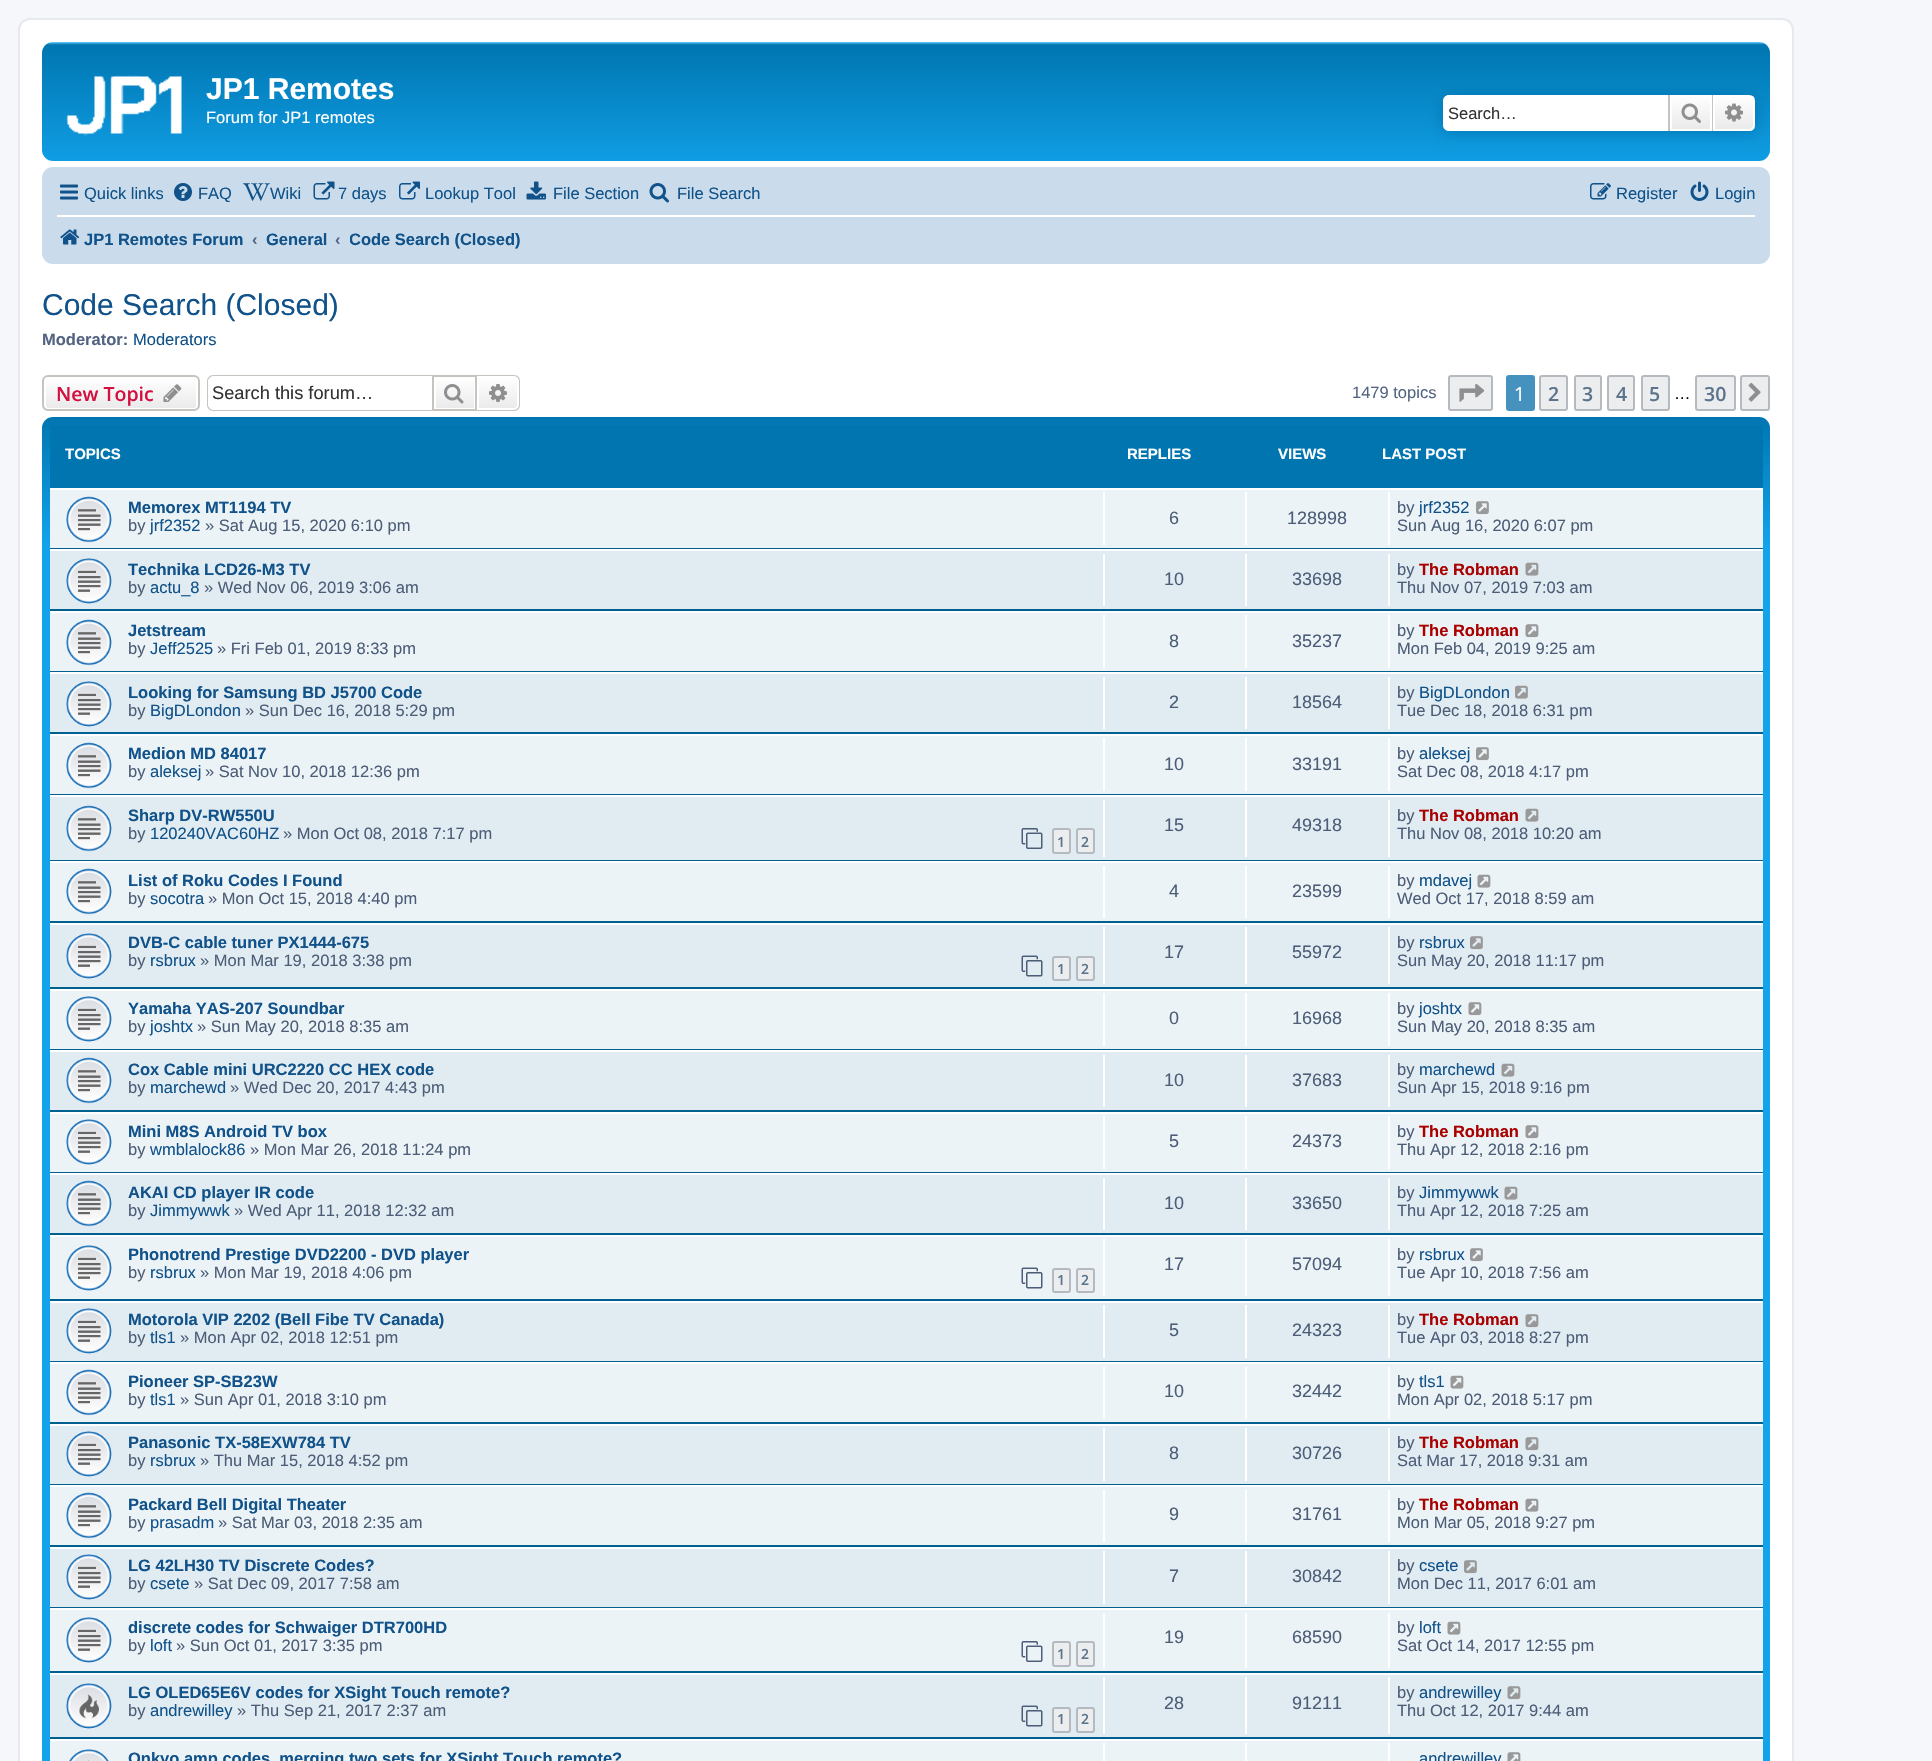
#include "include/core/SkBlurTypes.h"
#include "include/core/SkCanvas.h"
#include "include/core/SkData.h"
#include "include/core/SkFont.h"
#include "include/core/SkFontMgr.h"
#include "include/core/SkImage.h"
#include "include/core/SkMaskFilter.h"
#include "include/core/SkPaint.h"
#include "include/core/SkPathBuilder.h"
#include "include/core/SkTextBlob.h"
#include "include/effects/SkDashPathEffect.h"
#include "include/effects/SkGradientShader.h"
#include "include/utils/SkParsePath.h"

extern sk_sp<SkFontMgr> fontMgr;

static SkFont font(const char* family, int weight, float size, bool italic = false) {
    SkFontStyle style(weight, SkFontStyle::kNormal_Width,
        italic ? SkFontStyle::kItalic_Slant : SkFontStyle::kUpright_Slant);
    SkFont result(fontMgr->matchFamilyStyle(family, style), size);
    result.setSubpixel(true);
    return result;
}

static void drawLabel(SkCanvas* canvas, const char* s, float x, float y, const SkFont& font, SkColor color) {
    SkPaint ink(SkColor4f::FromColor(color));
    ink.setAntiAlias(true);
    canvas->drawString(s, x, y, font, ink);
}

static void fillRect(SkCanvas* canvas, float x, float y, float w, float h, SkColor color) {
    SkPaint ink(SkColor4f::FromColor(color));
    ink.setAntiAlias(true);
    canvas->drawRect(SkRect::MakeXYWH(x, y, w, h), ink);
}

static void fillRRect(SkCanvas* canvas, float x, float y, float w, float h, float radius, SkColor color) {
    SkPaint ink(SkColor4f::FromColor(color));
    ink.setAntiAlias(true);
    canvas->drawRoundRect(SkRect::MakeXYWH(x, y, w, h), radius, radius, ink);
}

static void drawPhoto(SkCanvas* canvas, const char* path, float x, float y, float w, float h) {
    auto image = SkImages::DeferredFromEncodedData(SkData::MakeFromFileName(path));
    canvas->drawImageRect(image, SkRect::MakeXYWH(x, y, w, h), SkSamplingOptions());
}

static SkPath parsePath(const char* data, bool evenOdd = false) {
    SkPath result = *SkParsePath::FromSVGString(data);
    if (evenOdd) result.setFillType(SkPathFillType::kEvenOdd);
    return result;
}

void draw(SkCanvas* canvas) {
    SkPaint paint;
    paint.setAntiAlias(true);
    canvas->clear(0xFFF5F7FA);
    paint.setColor(0xFFFFFFFF);
    canvas->drawRoundRect(SkRect::MakeXYWH(19, 19, 1774, 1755), 11, 11, paint);
    paint.setStroke(true);
    paint.setStrokeWidth(2);
    paint.setColor(0xFFE6E9ED);
    canvas->drawRoundRect(SkRect::MakeXYWH(19, 19, 1774, 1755), 11, 11, paint);
    paint.setStroke(false);
    {
        const SkColor colors[] = {0xFF6ACEFF, 0xFF0076B1, 0xFF12A3EB};
        const float stops[] = {0, 0.02f, 1};
        const SkPoint ends[] = {{906, 42}, {906, 180}};
        paint.setShader(SkGradientShader::MakeLinear(ends, colors, stops, 3, SkTileMode::kClamp));
        paint.setAlpha(255);
    }
    canvas->drawRoundRect(SkRect::MakeXYWH(42, 42, 1728, 119), 11, 11, paint);
    drawPhoto(canvas, "assets/img1.png", 66, 75, 116, 61);
    SkFont font1 = font("Liberation Sans", 700, 30);
    drawLabel(canvas, "JP1 Remotes", 206, 99, font1, 0xFFFFFFFF);
    SkFont font2 = font("Liberation Sans", 400, 16.5f);
    drawLabel(canvas, "Forum for JP1 remotes", 206, 123, font2, 0xFFFFFFFF);
    paint.setShader(nullptr);
    paint.setColor(0xFF0075B0);
    paint.setMaskFilter(SkMaskFilter::MakeBlur(kNormal_SkBlurStyle, 7.5f));
    canvas->drawRoundRect(SkRect::MakeXYWH(1443, 95, 312, 36), 6, 6, paint);
    paint.setMaskFilter(nullptr);
    paint.setColor(0xFFFFFFFF);
    canvas->drawPath(parsePath("M1449 95H1668V131H1449C1445.5 131 1443 128.5 1443 125V101C1443 97.5 1445.5 95 1449 95Z"), paint);
    drawLabel(canvas, "Search…", 1448, 119, font2, 0xFF333333);
    {
        const SkColor colors[] = {0xFFFFFFFF, 0xFFE9E9E9};
        const float stops[] = {0, 1};
        const SkPoint ends[] = {{1691, 95}, {1691, 131}};
        paint.setShader(SkGradientShader::MakeLinear(ends, colors, stops, 2, SkTileMode::kClamp));
        paint.setAlpha(255);
    }
    canvas->drawRect(SkRect::MakeXYWH(1672, 97, 38, 32), paint);
    paint.setStroke(true);
    paint.setShader(nullptr);
    paint.setColor(0xFFFFFFFF);
    canvas->drawRect(SkRect::MakeXYWH(1671, 96, 40, 34), paint);
    fillRect(canvas, 1712, 95, 1, 36, 0xFFC7C3BF);
    fillRect(canvas, 1668, 95, 2, 36, 0xFFC7C3BF);
    drawPhoto(canvas, "assets/img2.png", 1681, 103, 20, 20);
    paint.setStroke(false);
    {
        const SkColor colors[] = {0xFFFFFFFF, 0xFFE9E9E9};
        const float stops[] = {0, 1};
        const SkPoint ends[] = {{1734, 95}, {1734, 131}};
        paint.setShader(SkGradientShader::MakeLinear(ends, colors, stops, 2, SkTileMode::kClamp));
        paint.setAlpha(255);
    }
    canvas->drawPath(parsePath("M1714 96H1749C1752 96 1754 98 1754 101V125C1754 128 1752 130 1749 130H1714Z"), paint);
    paint.setStroke(true);
    paint.setShader(nullptr);
    paint.setColor(0xFFFFFFFF);
    canvas->drawPath(parsePath("M1714 96H1749C1752 96 1754 98 1754 101V125C1754 128 1752 130 1749 130H1714Z"), paint);
    drawPhoto(canvas, "assets/img3.png", 1725, 103, 18, 19);
    fillRRect(canvas, 42, 167, 1728, 97, 11, 0xFFCADCEB);
    drawPhoto(canvas, "assets/img4.png", 60, 184, 18, 16);
    drawLabel(canvas, "Quick links", 84, 199, font2, 0xFF105289);
    drawPhoto(canvas, "assets/img5.png", 174, 183, 18, 18);
    drawLabel(canvas, "FAQ", 198, 199, font2, 0xFF105289);
    drawPhoto(canvas, "assets/img6.png", 243, 183, 27, 18);
    drawLabel(canvas, "Wiki", 270, 199, font2, 0xFF105289);
    drawPhoto(canvas, "assets/img7.png", 313, 181, 22, 19);
    drawLabel(canvas, "7 days", 338, 199, font2, 0xFF105289);
    drawPhoto(canvas, "assets/img8.png", 399, 181, 21, 19);
    drawLabel(canvas, "Lookup Tool", 425, 199, font2, 0xFF105289);
    drawPhoto(canvas, "assets/img9.png", 526, 181, 20, 19);
    drawLabel(canvas, "File Section", 553, 199, font2, 0xFF105289);
    drawPhoto(canvas, "assets/img10.png", 649, 183, 20, 20);
    drawLabel(canvas, "File Search", 677, 199, font2, 0xFF105289);
    drawPhoto(canvas, "assets/img11.png", 1590, 183, 21, 17);
    drawLabel(canvas, "Register", 1616, 199, font2, 0xFF105289);
    drawPhoto(canvas, "assets/img12.png", 1690, 181, 19, 20);
    drawLabel(canvas, "Login", 1715, 199, font2, 0xFF105289);
    fillRect(canvas, 57, 215, 1698, 2, 0xFFFFFFFF);
    drawPhoto(canvas, "assets/img13.png", 60, 229, 20, 16);
    SkFont font3 = font("Liberation Sans", 700, 16.5f);
    drawLabel(canvas, "JP1 Remotes Forum", 84, 245, font3, 0xFF105289);
    drawLabel(canvas, "‹", 252, 245, font3, 0xFF536482);
    drawLabel(canvas, "General", 266, 245, font3, 0xFF105289);
    drawLabel(canvas, "‹", 335, 245, font3, 0xFF536482);
    canvas->save();
    canvas->clipRect(SkRect::MakeXYWH(350, 221, 171, 36));
    drawLabel(canvas, "Code Search (Closed)", 349, 245, font3, 0xFF105289);
    canvas->restore();
    SkFont font4 = font("Liberation Sans", 400, 30);
    drawLabel(canvas, "Code Search (Closed)", 42, 315, font4, 0xFF105289);
    drawLabel(canvas, "Moderator:", 42, 345, font3, 0xFF536482);
    drawLabel(canvas, "Moderators", 133, 345, font2, 0xFF105289);
    canvas->save();
    canvas->clipPath(parsePath("M48 375H194C197.5 375 200 377.5 200 381V405C200 408.5 197.5 411 194 411H48C44.5 411 42 408.5 42 405V381C42 377.5 44.5 375 48 375Z"), true);
    paint.setStroke(false);
    {
        const SkColor colors[] = {0xFFFFFFFF, 0xFFE9E9E9};
        const float stops[] = {0, 1};
        const SkPoint ends[] = {{121, 377}, {121, 410}};
        paint.setShader(SkGradientShader::MakeLinear(ends, colors, stops, 2, SkTileMode::kClamp));
        paint.setAlpha(255);
    }
    canvas->drawRect(SkRect::MakeXYWH(42, 377, 158, 33), paint);
    canvas->restore();
    paint.setStroke(true);
    paint.setShader(nullptr);
    paint.setColor(0xFFFFFFFF);
    canvas->drawRoundRect(SkRect::MakeXYWH(45, 378, 152, 31), 4, 4, paint);
    paint.setColor(0xFFC7C3BF);
    canvas->drawRoundRect(SkRect::MakeXYWH(43, 376, 156, 34), 5, 5, paint);
    SkFont font5 = font("Open Sans", 600, 19.5f);
    drawLabel(canvas, "New Topic", 56, 401, font5, 0xFFD31141);
    drawPhoto(canvas, "assets/img14.png", 163, 384, 19, 18);
    paint.setStroke(false);
    canvas->drawPath(parsePath("M213 375H432V411H213C210 411 207 408 207 405V381C207 378 210 375 213 375ZM213 376H432V410H213C211 410 208 407 208 405V381C208 379 211 376 213 376Z", true), paint);
    SkFont font6 = font("Liberation Sans", 400, 18.25f);
    drawLabel(canvas, "Search this forum…", 212, 399, font6, 0xFF333333);
    {
        const SkColor colors[] = {0xFFFFFFFF, 0xFFE9E9E9};
        const float stops[] = {0, 1};
        const SkPoint ends[] = {{455, 377}, {455, 410}};
        paint.setShader(SkGradientShader::MakeLinear(ends, colors, stops, 2, SkTileMode::kClamp));
        paint.setAlpha(255);
    }
    canvas->drawRect(SkRect::MakeXYWH(436, 381, 38, 27), paint);
    paint.setStroke(true);
    paint.setShader(nullptr);
    paint.setColor(0xFFC7C3BF);
    canvas->drawRect(SkRect::MakeXYWH(433, 376, 43, 34), paint);
    drawPhoto(canvas, "assets/img15.png", 444, 384, 20, 20);
    paint.setStroke(false);
    {
        const SkColor colors[] = {0xFFFFFFFF, 0xFFE9E9E9};
        const float stops[] = {0, 1};
        const SkPoint ends[] = {{498, 377}, {498, 410}};
        paint.setShader(SkGradientShader::MakeLinear(ends, colors, stops, 2, SkTileMode::kClamp));
        paint.setAlpha(255);
    }
    canvas->drawPath(parsePath("M478 378H514C516 378 518 380 518 382V405C518 407 516 409 514 409H478Z"), paint);
    paint.setStroke(true);
    paint.setShader(nullptr);
    paint.setColor(0xFFFFFFFF);
    canvas->drawPath(parsePath("M478 378H514C516 378 518 380 518 382V405C518 407 516 409 514 409H478Z"), paint);
    paint.setStroke(false);
    paint.setColor(0xFFC7C3BF);
    canvas->drawPath(parsePath("M477 375H514C518 375 520 378 520 381V405C520 408 518 411 514 411H477ZM477 376H514C517 376 519 379 519 381V405C519 407 517 410 514 410H477Z", true), paint);
    drawPhoto(canvas, "assets/img16.png", 489, 384, 18, 18);
    drawLabel(canvas, "1479 topics", 1352, 398, font2, 0xFF536482);
    paint.setColor(0xFFECEDEE);
    canvas->drawRoundRect(SkRect::MakeXYWH(1449, 376, 43, 34), 2, 2, paint);
    paint.setStroke(true);
    paint.setColor(0xFFB4BAC0);
    canvas->drawRoundRect(SkRect::MakeXYWH(1449, 376, 43, 34), 2, 2, paint);
    drawPhoto(canvas, "assets/img17.png", 1459, 383, 26, 19);
    paint.setStroke(false);
    paint.setColor(0xFF4692BF);
    canvas->drawRoundRect(SkRect::MakeXYWH(1507, 376, 27, 34), 2, 2, paint);
    paint.setStroke(true);
    canvas->drawRoundRect(SkRect::MakeXYWH(1507, 376, 27, 34), 2, 2, paint);
    SkFont font7 = font("Open Sans", 400, 19.5f);
    drawLabel(canvas, "1", 1514, 401, font7, 0xFFFFFFFF);
    paint.setStroke(false);
    paint.setColor(0xFFECEDEE);
    canvas->drawRoundRect(SkRect::MakeXYWH(1540, 376, 27, 34), 2, 2, paint);
    paint.setStroke(true);
    paint.setColor(0xFFB4BAC0);
    canvas->drawRoundRect(SkRect::MakeXYWH(1540, 376, 27, 34), 2, 2, paint);
    drawLabel(canvas, "2", 1548, 401, font5, 0xFF5C758C);
    paint.setStroke(false);
    paint.setColor(0xFFECEDEE);
    canvas->drawRoundRect(SkRect::MakeXYWH(1575, 376, 26, 34), 2, 2, paint);
    paint.setStroke(true);
    paint.setColor(0xFFB4BAC0);
    canvas->drawRoundRect(SkRect::MakeXYWH(1575, 376, 26, 34), 2, 2, paint);
    drawLabel(canvas, "3", 1582, 401, font5, 0xFF5C758C);
    paint.setStroke(false);
    paint.setColor(0xFFECEDEE);
    canvas->drawRoundRect(SkRect::MakeXYWH(1608, 376, 26, 34), 2, 2, paint);
    paint.setStroke(true);
    paint.setColor(0xFFB4BAC0);
    canvas->drawRoundRect(SkRect::MakeXYWH(1608, 376, 26, 34), 2, 2, paint);
    drawLabel(canvas, "4", 1616, 401, font5, 0xFF5C758C);
    paint.setStroke(false);
    paint.setColor(0xFFECEDEE);
    canvas->drawRoundRect(SkRect::MakeXYWH(1642, 376, 27, 34), 2, 2, paint);
    paint.setStroke(true);
    paint.setColor(0xFFB4BAC0);
    canvas->drawRoundRect(SkRect::MakeXYWH(1642, 376, 27, 34), 2, 2, paint);
    drawLabel(canvas, "5", 1649, 401, font5, 0xFF5C758C);
    drawLabel(canvas, "…", 1674, 399, font2, 0xFF000000);
    paint.setStroke(false);
    paint.setColor(0xFFECEDEE);
    canvas->drawRoundRect(SkRect::MakeXYWH(1696, 376, 39, 34), 2, 2, paint);
    paint.setStroke(true);
    paint.setColor(0xFFB4BAC0);
    canvas->drawRoundRect(SkRect::MakeXYWH(1696, 376, 39, 34), 2, 2, paint);
    drawLabel(canvas, "30", 1704, 401, font5, 0xFF5C758C);
    paint.setStroke(false);
    paint.setColor(0xFFECEDEE);
    canvas->drawRoundRect(SkRect::MakeXYWH(1741, 376, 28, 34), 2, 2, paint);
    paint.setStroke(true);
    paint.setColor(0xFFB4BAC0);
    canvas->drawRoundRect(SkRect::MakeXYWH(1741, 376, 28, 34), 2, 2, paint);
    drawPhoto(canvas, "assets/img18.png", 1748, 382, 13, 20);
    paint.setStroke(false);
    {
        const SkColor colors[] = {0xFF6ACEFF, 0xFF0076B1, 0xFF12A3EB, 0xFF12A3EB};
        const float stops[] = {0, 0, 0.04f, 1};
        const SkPoint ends[] = {{906, 417}, {906, 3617}};
        paint.setShader(SkGradientShader::MakeLinear(ends, colors, stops, 4, SkTileMode::kClamp));
        paint.setAlpha(255);
    }
    canvas->drawRoundRect(SkRect::MakeXYWH(42, 417, 1728, 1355), 11, 11, paint);
    fillRect(canvas, 50, 425, 1713, 63, 0xFF0075B0);
    SkFont font8 = font("Liberation Sans", 700, 15);
    drawLabel(canvas, "TOPICS", 65, 459, font8, 0xFFFFFFFF);
    drawLabel(canvas, "REPLIES", 1127, 459, font8, 0xFFFFFFFF);
    drawLabel(canvas, "VIEWS", 1278, 459, font8, 0xFFFFFFFF);
    drawLabel(canvas, "LAST POST", 1382, 459, font8, 0xFFFFFFFF);
    fillRect(canvas, 50, 490, 1713, 58, 0xFFECF3F7);
    fillRect(canvas, 50, 488, 1713, 2, 0xFFFFFFFF);
    fillRect(canvas, 50, 548, 1713, 1, 0xFF00608F);
    drawPhoto(canvas, "assets/img19.png", 66, 496, 46, 47);
    drawLabel(canvas, "Memorex MT1194 TV", 128, 513, font3, 0xFF105289);
    drawLabel(canvas, "by", 128, 531, font2, 0xFF4C5D77);
    drawLabel(canvas, "jrf2352", 150, 531, font2, 0xFF105289);
    drawLabel(canvas, "» Sat Aug 15, 2020 6:10 pm", 205, 531, font2, 0xFF4C5D77);
    fillRect(canvas, 1103, 492, 2, 53, 0xFFFFFFFF);
    SkFont font9 = font("Liberation Sans", 400, 18);
    drawLabel(canvas, "6", 1169, 524, font9, 0xFF4C5D77);
    fillRect(canvas, 1245, 492, 2, 53, 0xFFFFFFFF);
    drawLabel(canvas, "128998", 1287, 524, font9, 0xFF4C5D77);
    fillRect(canvas, 1388, 492, 2, 53, 0xFFFFFFFF);
    drawLabel(canvas, "by", 1397, 513, font2, 0xFF4C5D77);
    drawLabel(canvas, "jrf2352", 1419, 513, font2, 0xFF105289);
    drawPhoto(canvas, "assets/img20.png", 1476, 501, 13, 14);
    drawLabel(canvas, "Sun Aug 16, 2020 6:07 pm", 1397, 531, font2, 0xFF4C5D77);
    fillRect(canvas, 50, 551, 1713, 58, 0xFFE1EBF2);
    fillRect(canvas, 50, 549, 1713, 2, 0xFFFFFFFF);
    fillRect(canvas, 50, 609, 1713, 2, 0xFF00608F);
    drawPhoto(canvas, "assets/img21.png", 66, 558, 46, 46);
    drawLabel(canvas, "Technika LCD26-M3 TV", 128, 575, font3, 0xFF105289);
    drawLabel(canvas, "by", 128, 593, font2, 0xFF4C5D77);
    drawLabel(canvas, "actu_8", 150, 593, font2, 0xFF105289);
    drawLabel(canvas, "» Wed Nov 06, 2019 3:06 am", 204, 593, font2, 0xFF4C5D77);
    fillRect(canvas, 1103, 554, 2, 52, 0xFFFFFFFF);
    drawLabel(canvas, "10", 1164, 585, font9, 0xFF4C5D77);
    fillRect(canvas, 1245, 554, 2, 52, 0xFFFFFFFF);
    drawLabel(canvas, "33698", 1292, 585, font9, 0xFF4C5D77);
    fillRect(canvas, 1388, 554, 2, 52, 0xFFFFFFFF);
    drawLabel(canvas, "by", 1397, 575, font2, 0xFF4C5D77);
    drawLabel(canvas, "The Robman", 1419, 575, font3, 0xFFAA0000);
    drawPhoto(canvas, "assets/img22.png", 1525, 562, 14, 14);
    drawLabel(canvas, "Thu Nov 07, 2019 7:03 am", 1397, 593, font2, 0xFF4C5D77);
    fillRect(canvas, 50, 613, 1713, 58, 0xFFECF3F7);
    fillRect(canvas, 50, 611, 1713, 2, 0xFFFFFFFF);
    fillRect(canvas, 50, 671, 1713, 1, 0xFF00608F);
    drawPhoto(canvas, "assets/img19.png", 66, 619, 46, 47);
    drawLabel(canvas, "Jetstream", 128, 636, font3, 0xFF105289);
    drawLabel(canvas, "by", 128, 654, font2, 0xFF4C5D77);
    drawLabel(canvas, "Jeff2525", 150, 654, font2, 0xFF105289);
    drawLabel(canvas, "» Fri Feb 01, 2019 8:33 pm", 217, 654, font2, 0xFF4C5D77);
    fillRect(canvas, 1103, 615, 2, 53, 0xFFFFFFFF);
    drawLabel(canvas, "8", 1169, 647, font9, 0xFF4C5D77);
    fillRect(canvas, 1245, 615, 2, 53, 0xFFFFFFFF);
    drawLabel(canvas, "35237", 1292, 647, font9, 0xFF4C5D77);
    fillRect(canvas, 1388, 615, 2, 53, 0xFFFFFFFF);
    drawLabel(canvas, "by", 1397, 636, font2, 0xFF4C5D77);
    drawLabel(canvas, "The Robman", 1419, 636, font3, 0xFFAA0000);
    drawPhoto(canvas, "assets/img23.png", 1525, 624, 14, 14);
    drawLabel(canvas, "Mon Feb 04, 2019 9:25 am", 1397, 654, font2, 0xFF4C5D77);
    fillRect(canvas, 50, 674, 1713, 58, 0xFFE1EBF2);
    fillRect(canvas, 50, 672, 1713, 2, 0xFFFFFFFF);
    fillRect(canvas, 50, 732, 1713, 2, 0xFF00608F);
    drawPhoto(canvas, "assets/img21.png", 66, 681, 46, 46);
    drawLabel(canvas, "Looking for Samsung BD J5700 Code", 128, 698, font3, 0xFF105289);
    drawLabel(canvas, "by", 128, 716, font2, 0xFF4C5D77);
    drawLabel(canvas, "BigDLondon", 150, 716, font2, 0xFF105289);
    drawLabel(canvas, "» Sun Dec 16, 2018 5:29 pm", 245, 716, font2, 0xFF4C5D77);
    fillRect(canvas, 1103, 677, 2, 52, 0xFFFFFFFF);
    drawLabel(canvas, "2", 1169, 708, font9, 0xFF4C5D77);
    fillRect(canvas, 1245, 677, 2, 52, 0xFFFFFFFF);
    drawLabel(canvas, "18564", 1292, 708, font9, 0xFF4C5D77);
    fillRect(canvas, 1388, 677, 2, 52, 0xFFFFFFFF);
    drawLabel(canvas, "by", 1397, 698, font2, 0xFF4C5D77);
    drawLabel(canvas, "BigDLondon", 1419, 698, font2, 0xFF105289);
    drawPhoto(canvas, "assets/img24.png", 1515, 685, 13, 14);
    drawLabel(canvas, "Tue Dec 18, 2018 6:31 pm", 1397, 716, font2, 0xFF4C5D77);
    fillRect(canvas, 50, 736, 1713, 58, 0xFFECF3F7);
    fillRect(canvas, 50, 734, 1713, 2, 0xFFFFFFFF);
    fillRect(canvas, 50, 794, 1713, 1, 0xFF00608F);
    drawPhoto(canvas, "assets/img19.png", 66, 742, 46, 47);
    drawLabel(canvas, "Medion MD 84017", 128, 759, font3, 0xFF105289);
    drawLabel(canvas, "by", 128, 777, font2, 0xFF4C5D77);
    drawLabel(canvas, "aleksej", 150, 777, font2, 0xFF105289);
    drawLabel(canvas, "» Sat Nov 10, 2018 12:36 pm", 205, 777, font2, 0xFF4C5D77);
    fillRect(canvas, 1103, 738, 2, 53, 0xFFFFFFFF);
    drawLabel(canvas, "10", 1164, 770, font9, 0xFF4C5D77);
    fillRect(canvas, 1245, 738, 2, 53, 0xFFFFFFFF);
    drawLabel(canvas, "33191", 1292, 770, font9, 0xFF4C5D77);
    fillRect(canvas, 1388, 738, 2, 53, 0xFFFFFFFF);
    drawLabel(canvas, "by", 1397, 759, font2, 0xFF4C5D77);
    drawLabel(canvas, "aleksej", 1419, 759, font2, 0xFF105289);
    drawPhoto(canvas, "assets/img20.png", 1476, 747, 13, 14);
    drawLabel(canvas, "Sat Dec 08, 2018 4:17 pm", 1397, 777, font2, 0xFF4C5D77);
    fillRect(canvas, 50, 797, 1713, 63, 0xFFE1EBF2);
    fillRect(canvas, 50, 795, 1713, 2, 0xFFFFFFFF);
    fillRect(canvas, 50, 860, 1713, 1, 0xFF00608F);
    drawPhoto(canvas, "assets/img25.png", 66, 805, 46, 47);
    drawLabel(canvas, "Sharp DV-RW550U", 128, 821, font3, 0xFF105289);
    drawLabel(canvas, "by", 128, 839, font2, 0xFF4C5D77);
    drawLabel(canvas, "120240VAC60HZ", 150, 839, font2, 0xFF105289);
    drawLabel(canvas, "» Mon Oct 08, 2018 7:17 pm", 283, 839, font2, 0xFF4C5D77);
    drawPhoto(canvas, "assets/img26.png", 1021, 828, 22, 21);
    paint.setShader(nullptr);
    paint.setColor(0xFFECEDEE);
    canvas->drawRoundRect(SkRect::MakeXYWH(1053, 829, 17, 24), 2, 2, paint);
    paint.setStroke(true);
    paint.setColor(0xFFB4BAC0);
    canvas->drawRoundRect(SkRect::MakeXYWH(1053, 829, 17, 24), 2, 2, paint);
    SkFont font10 = font("Open Sans", 600, 14);
    drawLabel(canvas, "1", 1057, 847, font10, 0xFF5C758C);
    paint.setStroke(false);
    paint.setColor(0xFFECEDEE);
    canvas->drawRoundRect(SkRect::MakeXYWH(1077, 829, 17, 24), 2, 2, paint);
    paint.setStroke(true);
    paint.setColor(0xFFB4BAC0);
    canvas->drawRoundRect(SkRect::MakeXYWH(1077, 829, 17, 24), 2, 2, paint);
    drawLabel(canvas, "2", 1081, 847, font10, 0xFF5C758C);
    fillRect(canvas, 1103, 800, 2, 57, 0xFFFFFFFF);
    drawLabel(canvas, "15", 1164, 831, font9, 0xFF4C5D77);
    fillRect(canvas, 1245, 800, 2, 57, 0xFFFFFFFF);
    drawLabel(canvas, "49318", 1292, 831, font9, 0xFF4C5D77);
    fillRect(canvas, 1388, 800, 2, 57, 0xFFFFFFFF);
    drawLabel(canvas, "by", 1397, 821, font2, 0xFF4C5D77);
    drawLabel(canvas, "The Robman", 1419, 821, font3, 0xFFAA0000);
    drawPhoto(canvas, "assets/img22.png", 1525, 808, 14, 14);
    drawLabel(canvas, "Thu Nov 08, 2018 10:20 am", 1397, 839, font2, 0xFF4C5D77);
    fillRect(canvas, 50, 863, 1713, 58, 0xFFECF3F7);
    fillRect(canvas, 50, 861, 1713, 2, 0xFFFFFFFF);
    fillRect(canvas, 50, 921, 1713, 2, 0xFF00608F);
    drawPhoto(canvas, "assets/img19.png", 66, 868, 46, 47);
    drawLabel(canvas, "List of Roku Codes I Found", 128, 886, font3, 0xFF105289);
    drawLabel(canvas, "by", 128, 904, font2, 0xFF4C5D77);
    drawLabel(canvas, "socotra", 150, 904, font2, 0xFF105289);
    drawLabel(canvas, "» Mon Oct 15, 2018 4:40 pm", 208, 904, font2, 0xFF4C5D77);
    fillRect(canvas, 1103, 866, 2, 52, 0xFFFFFFFF);
    drawLabel(canvas, "4", 1169, 897, font9, 0xFF4C5D77);
    fillRect(canvas, 1245, 866, 2, 52, 0xFFFFFFFF);
    drawLabel(canvas, "23599", 1292, 897, font9, 0xFF4C5D77);
    fillRect(canvas, 1388, 866, 2, 52, 0xFFFFFFFF);
    drawLabel(canvas, "by", 1397, 886, font2, 0xFF4C5D77);
    drawLabel(canvas, "mdavej", 1419, 886, font2, 0xFF105289);
    drawPhoto(canvas, "assets/img27.png", 1477, 874, 14, 14);
    drawLabel(canvas, "Wed Oct 17, 2018 8:59 am", 1397, 904, font2, 0xFF4C5D77);
    fillRect(canvas, 50, 925, 1713, 62, 0xFFE1EBF2);
    fillRect(canvas, 50, 923, 1713, 2, 0xFFFFFFFF);
    fillRect(canvas, 50, 987, 1713, 2, 0xFF00608F);
    drawPhoto(canvas, "assets/img21.png", 66, 933, 46, 46);
    drawLabel(canvas, "DVB-C cable tuner PX1444-675", 128, 948, font3, 0xFF105289);
    drawLabel(canvas, "by", 128, 966, font2, 0xFF4C5D77);
    drawLabel(canvas, "rsbrux", 150, 966, font2, 0xFF105289);
    drawLabel(canvas, "» Mon Mar 19, 2018 3:38 pm", 200, 966, font2, 0xFF4C5D77);
    drawPhoto(canvas, "assets/img28.png", 1021, 955, 22, 22);
    paint.setStroke(false);
    paint.setColor(0xFFECEDEE);
    canvas->drawRoundRect(SkRect::MakeXYWH(1053, 957, 17, 23), 2, 2, paint);
    paint.setStroke(true);
    paint.setColor(0xFFB4BAC0);
    canvas->drawRoundRect(SkRect::MakeXYWH(1053, 957, 17, 23), 2, 2, paint);
    drawLabel(canvas, "1", 1057, 974, font10, 0xFF5C758C);
    paint.setStroke(false);
    paint.setColor(0xFFECEDEE);
    canvas->drawRoundRect(SkRect::MakeXYWH(1077, 957, 17, 23), 2, 2, paint);
    paint.setStroke(true);
    paint.setColor(0xFFB4BAC0);
    canvas->drawRoundRect(SkRect::MakeXYWH(1077, 957, 17, 23), 2, 2, paint);
    drawLabel(canvas, "2", 1081, 974, font10, 0xFF5C758C);
    fillRect(canvas, 1103, 927, 2, 57, 0xFFFFFFFF);
    drawLabel(canvas, "17", 1164, 958, font9, 0xFF4C5D77);
    fillRect(canvas, 1245, 927, 2, 57, 0xFFFFFFFF);
    drawLabel(canvas, "55972", 1292, 958, font9, 0xFF4C5D77);
    fillRect(canvas, 1388, 927, 2, 57, 0xFFFFFFFF);
    drawLabel(canvas, "by", 1397, 948, font2, 0xFF4C5D77);
    drawLabel(canvas, "rsbrux", 1419, 948, font2, 0xFF105289);
    drawPhoto(canvas, "assets/img29.png", 1470, 936, 13, 14);
    drawLabel(canvas, "Sun May 20, 2018 11:17 pm", 1397, 966, font2, 0xFF4C5D77);
    fillRect(canvas, 50, 991, 1713, 58, 0xFFECF3F7);
    fillRect(canvas, 50, 989, 1713, 2, 0xFFFFFFFF);
    fillRect(canvas, 50, 1049, 1713, 1, 0xFF00608F);
    drawPhoto(canvas, "assets/img30.png", 66, 996, 46, 46);
    drawLabel(canvas, "Yamaha YAS-207 Soundbar", 128, 1014, font3, 0xFF105289);
    drawLabel(canvas, "by", 128, 1032, font2, 0xFF4C5D77);
    drawLabel(canvas, "joshtx", 150, 1032, font2, 0xFF105289);
    drawLabel(canvas, "» Sun May 20, 2018 8:35 am", 197, 1032, font2, 0xFF4C5D77);
    fillRect(canvas, 1103, 993, 2, 53, 0xFFFFFFFF);
    drawLabel(canvas, "0", 1169, 1024, font9, 0xFF4C5D77);
    fillRect(canvas, 1245, 993, 2, 53, 0xFFFFFFFF);
    drawLabel(canvas, "16968", 1292, 1024, font9, 0xFF4C5D77);
    fillRect(canvas, 1388, 993, 2, 53, 0xFFFFFFFF);
    drawLabel(canvas, "by", 1397, 1014, font2, 0xFF4C5D77);
    drawLabel(canvas, "joshtx", 1419, 1014, font2, 0xFF105289);
    drawPhoto(canvas, "assets/img23.png", 1468, 1002, 14, 14);
    drawLabel(canvas, "Sun May 20, 2018 8:35 am", 1397, 1032, font2, 0xFF4C5D77);
    fillRect(canvas, 50, 1052, 1713, 58, 0xFFE1EBF2);
    fillRect(canvas, 50, 1050, 1713, 2, 0xFFFFFFFF);
    fillRect(canvas, 50, 1110, 1713, 2, 0xFF00608F);
    drawPhoto(canvas, "assets/img25.png", 66, 1057, 46, 47);
    drawLabel(canvas, "Cox Cable mini URC2220 CC HEX code", 128, 1075, font3, 0xFF105289);
    drawLabel(canvas, "by", 128, 1093, font2, 0xFF4C5D77);
    drawLabel(canvas, "marchewd", 150, 1093, font2, 0xFF105289);
    drawLabel(canvas, "» Wed Dec 20, 2017 4:43 pm", 230, 1093, font2, 0xFF4C5D77);
    fillRect(canvas, 1103, 1055, 2, 52, 0xFFFFFFFF);
    drawLabel(canvas, "10", 1164, 1086, font9, 0xFF4C5D77);
    fillRect(canvas, 1245, 1055, 2, 52, 0xFFFFFFFF);
    drawLabel(canvas, "37683", 1292, 1086, font9, 0xFF4C5D77);
    fillRect(canvas, 1388, 1055, 2, 52, 0xFFFFFFFF);
    drawLabel(canvas, "by", 1397, 1075, font2, 0xFF4C5D77);
    drawLabel(canvas, "marchewd", 1419, 1075, font2, 0xFF105289);
    drawPhoto(canvas, "assets/img22.png", 1501, 1063, 14, 14);
    drawLabel(canvas, "Sun Apr 15, 2018 9:16 pm", 1397, 1093, font2, 0xFF4C5D77);
    fillRect(canvas, 50, 1114, 1713, 58, 0xFFECF3F7);
    fillRect(canvas, 50, 1112, 1713, 2, 0xFFFFFFFF);
    fillRect(canvas, 50, 1172, 1713, 1, 0xFF00608F);
    drawPhoto(canvas, "assets/img30.png", 66, 1119, 46, 46);
    drawLabel(canvas, "Mini M8S Android TV box", 128, 1137, font3, 0xFF105289);
    drawLabel(canvas, "by", 128, 1155, font2, 0xFF4C5D77);
    drawLabel(canvas, "wmblalock86", 150, 1155, font2, 0xFF105289);
    drawLabel(canvas, "» Mon Mar 26, 2018 11:24 pm", 250, 1155, font2, 0xFF4C5D77);
    fillRect(canvas, 1103, 1116, 2, 53, 0xFFFFFFFF);
    drawLabel(canvas, "5", 1169, 1147, font9, 0xFF4C5D77);
    fillRect(canvas, 1245, 1116, 2, 53, 0xFFFFFFFF);
    drawLabel(canvas, "24373", 1292, 1147, font9, 0xFF4C5D77);
    fillRect(canvas, 1388, 1116, 2, 53, 0xFFFFFFFF);
    drawLabel(canvas, "by", 1397, 1137, font2, 0xFF4C5D77);
    drawLabel(canvas, "The Robman", 1419, 1137, font3, 0xFFAA0000);
    drawPhoto(canvas, "assets/img23.png", 1525, 1125, 14, 14);
    drawLabel(canvas, "Thu Apr 12, 2018 2:16 pm", 1397, 1155, font2, 0xFF4C5D77);
    fillRect(canvas, 50, 1175, 1713, 58, 0xFFE1EBF2);
    fillRect(canvas, 50, 1173, 1713, 2, 0xFFFFFFFF);
    fillRect(canvas, 50, 1233, 1713, 2, 0xFF00608F);
    drawPhoto(canvas, "assets/img25.png", 66, 1180, 46, 47);
    drawLabel(canvas, "AKAI CD player IR code", 128, 1198, font3, 0xFF105289);
    drawLabel(canvas, "by", 128, 1216, font2, 0xFF4C5D77);
    drawLabel(canvas, "Jimmywwk", 150, 1216, font2, 0xFF105289);
    drawLabel(canvas, "» Wed Apr 11, 2018 12:32 am", 234, 1216, font2, 0xFF4C5D77);
    fillRect(canvas, 1103, 1178, 2, 52, 0xFFFFFFFF);
    drawLabel(canvas, "10", 1164, 1209, font9, 0xFF4C5D77);
    fillRect(canvas, 1245, 1178, 2, 52, 0xFFFFFFFF);
    drawLabel(canvas, "33650", 1292, 1209, font9, 0xFF4C5D77);
    fillRect(canvas, 1388, 1178, 2, 52, 0xFFFFFFFF);
    drawLabel(canvas, "by", 1397, 1198, font2, 0xFF4C5D77);
    drawLabel(canvas, "Jimmywwk", 1419, 1198, font2, 0xFF105289);
    drawPhoto(canvas, "assets/img22.png", 1504, 1186, 14, 14);
    drawLabel(canvas, "Thu Apr 12, 2018 7:25 am", 1397, 1216, font2, 0xFF4C5D77);
    fillRect(canvas, 50, 1237, 1713, 62, 0xFFECF3F7);
    fillRect(canvas, 50, 1235, 1713, 2, 0xFFFFFFFF);
    fillRect(canvas, 50, 1299, 1713, 2, 0xFF00608F);
    drawPhoto(canvas, "assets/img30.png", 66, 1245, 46, 46);
    drawLabel(canvas, "Phonotrend Prestige DVD2200 - DVD player", 128, 1260, font3, 0xFF105289);
    drawLabel(canvas, "by", 128, 1278, font2, 0xFF4C5D77);
    drawLabel(canvas, "rsbrux", 150, 1278, font2, 0xFF105289);
    drawLabel(canvas, "» Mon Mar 19, 2018 4:06 pm", 200, 1278, font2, 0xFF4C5D77);
    drawPhoto(canvas, "assets/img31.png", 1021, 1267, 22, 22);
    paint.setStroke(false);
    paint.setColor(0xFFECEDEE);
    canvas->drawRoundRect(SkRect::MakeXYWH(1053, 1269, 17, 23), 2, 2, paint);
    paint.setStroke(true);
    paint.setColor(0xFFB4BAC0);
    canvas->drawRoundRect(SkRect::MakeXYWH(1053, 1269, 17, 23), 2, 2, paint);
    drawLabel(canvas, "1", 1057, 1285, font10, 0xFF5C758C);
    paint.setStroke(false);
    paint.setColor(0xFFECEDEE);
    canvas->drawRoundRect(SkRect::MakeXYWH(1077, 1269, 17, 23), 2, 2, paint);
    paint.setStroke(true);
    paint.setColor(0xFFB4BAC0);
    canvas->drawRoundRect(SkRect::MakeXYWH(1077, 1269, 17, 23), 2, 2, paint);
    drawLabel(canvas, "2", 1081, 1285, font10, 0xFF5C758C);
    fillRect(canvas, 1103, 1239, 2, 57, 0xFFFFFFFF);
    drawLabel(canvas, "17", 1164, 1270, font9, 0xFF4C5D77);
    fillRect(canvas, 1245, 1239, 2, 57, 0xFFFFFFFF);
    drawLabel(canvas, "57094", 1292, 1270, font9, 0xFF4C5D77);
    fillRect(canvas, 1388, 1239, 2, 57, 0xFFFFFFFF);
    drawLabel(canvas, "by", 1397, 1260, font2, 0xFF4C5D77);
    drawLabel(canvas, "rsbrux", 1419, 1260, font2, 0xFF105289);
    drawPhoto(canvas, "assets/img20.png", 1470, 1248, 13, 14);
    drawLabel(canvas, "Tue Apr 10, 2018 7:56 am", 1397, 1278, font2, 0xFF4C5D77);
    fillRect(canvas, 50, 1303, 1713, 58, 0xFFE1EBF2);
    fillRect(canvas, 50, 1301, 1713, 2, 0xFFFFFFFF);
    fillRect(canvas, 50, 1361, 1713, 1, 0xFF00608F);
    drawPhoto(canvas, "assets/img21.png", 66, 1308, 46, 46);
    drawLabel(canvas, "Motorola VIP 2202 (Bell Fibe TV Canada)", 128, 1325, font3, 0xFF105289);
    drawLabel(canvas, "by", 128, 1343, font2, 0xFF4C5D77);
    drawLabel(canvas, "tls1", 150, 1343, font2, 0xFF105289);
    drawLabel(canvas, "» Mon Apr 02, 2018 12:51 pm", 180, 1343, font2, 0xFF4C5D77);
    fillRect(canvas, 1103, 1305, 2, 53, 0xFFFFFFFF);
    drawLabel(canvas, "5", 1169, 1336, font9, 0xFF4C5D77);
    fillRect(canvas, 1245, 1305, 2, 53, 0xFFFFFFFF);
    drawLabel(canvas, "24323", 1292, 1336, font9, 0xFF4C5D77);
    fillRect(canvas, 1388, 1305, 2, 53, 0xFFFFFFFF);
    drawLabel(canvas, "by", 1397, 1325, font2, 0xFF4C5D77);
    drawLabel(canvas, "The Robman", 1419, 1325, font3, 0xFFAA0000);
    drawPhoto(canvas, "assets/img32.png", 1525, 1314, 14, 14);
    drawLabel(canvas, "Tue Apr 03, 2018 8:27 pm", 1397, 1343, font2, 0xFF4C5D77);
    fillRect(canvas, 50, 1364, 1713, 58, 0xFFECF3F7);
    fillRect(canvas, 50, 1362, 1713, 2, 0xFFFFFFFF);
    fillRect(canvas, 50, 1422, 1713, 2, 0xFF00608F);
    drawPhoto(canvas, "assets/img19.png", 66, 1369, 46, 47);
    drawLabel(canvas, "Pioneer SP-SB23W", 128, 1387, font3, 0xFF105289);
    drawLabel(canvas, "by", 128, 1405, font2, 0xFF4C5D77);
    drawLabel(canvas, "tls1", 150, 1405, font2, 0xFF105289);
    drawLabel(canvas, "» Sun Apr 01, 2018 3:10 pm", 180, 1405, font2, 0xFF4C5D77);
    fillRect(canvas, 1103, 1367, 2, 52, 0xFFFFFFFF);
    drawLabel(canvas, "10", 1164, 1397, font9, 0xFF4C5D77);
    fillRect(canvas, 1245, 1367, 2, 52, 0xFFFFFFFF);
    drawLabel(canvas, "32442", 1292, 1397, font9, 0xFF4C5D77);
    fillRect(canvas, 1388, 1367, 2, 52, 0xFFFFFFFF);
    drawLabel(canvas, "by", 1397, 1387, font2, 0xFF4C5D77);
    drawLabel(canvas, "tls1", 1419, 1387, font2, 0xFF105289);
    drawPhoto(canvas, "assets/img27.png", 1450, 1375, 14, 14);
    drawLabel(canvas, "Mon Apr 02, 2018 5:17 pm", 1397, 1405, font2, 0xFF4C5D77);
    fillRect(canvas, 50, 1426, 1713, 58, 0xFFE1EBF2);
    fillRect(canvas, 50, 1424, 1713, 2, 0xFFFFFFFF);
    fillRect(canvas, 50, 1484, 1713, 1, 0xFF00608F);
    drawPhoto(canvas, "assets/img21.png", 66, 1431, 46, 46);
    drawLabel(canvas, "Panasonic TX-58EXW784 TV", 128, 1448, font3, 0xFF105289);
    drawLabel(canvas, "by", 128, 1466, font2, 0xFF4C5D77);
    drawLabel(canvas, "rsbrux", 150, 1466, font2, 0xFF105289);
    drawLabel(canvas, "» Thu Mar 15, 2018 4:52 pm", 200, 1466, font2, 0xFF4C5D77);
    fillRect(canvas, 1103, 1428, 2, 53, 0xFFFFFFFF);
    drawLabel(canvas, "8", 1169, 1459, font9, 0xFF4C5D77);
    fillRect(canvas, 1245, 1428, 2, 53, 0xFFFFFFFF);
    drawLabel(canvas, "30726", 1292, 1459, font9, 0xFF4C5D77);
    fillRect(canvas, 1388, 1428, 2, 53, 0xFFFFFFFF);
    drawLabel(canvas, "by", 1397, 1448, font2, 0xFF4C5D77);
    drawLabel(canvas, "The Robman", 1419, 1448, font3, 0xFFAA0000);
    drawPhoto(canvas, "assets/img32.png", 1525, 1437, 14, 14);
    drawLabel(canvas, "Sat Mar 17, 2018 9:31 am", 1397, 1466, font2, 0xFF4C5D77);
    fillRect(canvas, 50, 1487, 1713, 58, 0xFFECF3F7);
    fillRect(canvas, 50, 1485, 1713, 2, 0xFFFFFFFF);
    fillRect(canvas, 50, 1545, 1713, 2, 0xFF00608F);
    drawPhoto(canvas, "assets/img19.png", 66, 1492, 46, 47);
    drawLabel(canvas, "Packard Bell Digital Theater", 128, 1510, font3, 0xFF105289);
    drawLabel(canvas, "by", 128, 1528, font2, 0xFF4C5D77);
    drawLabel(canvas, "prasadm", 150, 1528, font2, 0xFF105289);
    drawLabel(canvas, "» Sat Mar 03, 2018 2:35 am", 218, 1528, font2, 0xFF4C5D77);
    fillRect(canvas, 1103, 1490, 2, 52, 0xFFFFFFFF);
    drawLabel(canvas, "9", 1169, 1520, font9, 0xFF4C5D77);
    fillRect(canvas, 1245, 1490, 2, 52, 0xFFFFFFFF);
    drawLabel(canvas, "31761", 1292, 1520, font9, 0xFF4C5D77);
    fillRect(canvas, 1388, 1490, 2, 52, 0xFFFFFFFF);
    drawLabel(canvas, "by", 1397, 1510, font2, 0xFF4C5D77);
    drawLabel(canvas, "The Robman", 1419, 1510, font3, 0xFFAA0000);
    drawPhoto(canvas, "assets/img27.png", 1525, 1498, 14, 14);
    drawLabel(canvas, "Mon Mar 05, 2018 9:27 pm", 1397, 1528, font2, 0xFF4C5D77);
    fillRect(canvas, 50, 1549, 1713, 58, 0xFFE1EBF2);
    fillRect(canvas, 50, 1547, 1713, 2, 0xFFFFFFFF);
    fillRect(canvas, 50, 1607, 1713, 1, 0xFF00608F);
    drawPhoto(canvas, "assets/img21.png", 66, 1554, 46, 46);
    drawLabel(canvas, "LG 42LH30 TV Discrete Codes?", 128, 1571, font3, 0xFF105289);
    drawLabel(canvas, "by", 128, 1589, font2, 0xFF4C5D77);
    drawLabel(canvas, "csete", 150, 1589, font2, 0xFF105289);
    drawLabel(canvas, "» Sat Dec 09, 2017 7:58 am", 194, 1589, font2, 0xFF4C5D77);
    fillRect(canvas, 1103, 1551, 2, 53, 0xFFFFFFFF);
    drawLabel(canvas, "7", 1169, 1582, font9, 0xFF4C5D77);
    fillRect(canvas, 1245, 1551, 2, 53, 0xFFFFFFFF);
    drawLabel(canvas, "30842", 1292, 1582, font9, 0xFF4C5D77);
    fillRect(canvas, 1388, 1551, 2, 53, 0xFFFFFFFF);
    drawLabel(canvas, "by", 1397, 1571, font2, 0xFF4C5D77);
    drawLabel(canvas, "csete", 1419, 1571, font2, 0xFF105289);
    drawPhoto(canvas, "assets/img29.png", 1464, 1560, 13, 14);
    drawLabel(canvas, "Mon Dec 11, 2017 6:01 am", 1397, 1589, font2, 0xFF4C5D77);
    fillRect(canvas, 50, 1610, 1713, 61, 0xFFECF3F7);
    fillRect(canvas, 50, 1608, 1713, 2, 0xFFFFFFFF);
    fillRect(canvas, 50, 1671, 1713, 2, 0xFF00608F);
    drawPhoto(canvas, "assets/img30.png", 66, 1617, 46, 46);
    drawLabel(canvas, "discrete codes for Schwaiger DTR700HD", 128, 1633, font3, 0xFF105289);
    drawLabel(canvas, "by", 128, 1651, font2, 0xFF4C5D77);
    drawLabel(canvas, "loft", 150, 1651, font2, 0xFF105289);
    drawLabel(canvas, "» Sun Oct 01, 2017 3:35 pm", 176, 1651, font2, 0xFF4C5D77);
    drawPhoto(canvas, "assets/img33.png", 1021, 1641, 22, 21);
    paint.setStroke(false);
    paint.setColor(0xFFECEDEE);
    canvas->drawRoundRect(SkRect::MakeXYWH(1053, 1642, 17, 24), 2, 2, paint);
    paint.setStroke(true);
    paint.setColor(0xFFB4BAC0);
    canvas->drawRoundRect(SkRect::MakeXYWH(1053, 1642, 17, 24), 2, 2, paint);
    drawLabel(canvas, "1", 1057, 1659, font10, 0xFF5C758C);
    paint.setStroke(false);
    paint.setColor(0xFFECEDEE);
    canvas->drawRoundRect(SkRect::MakeXYWH(1077, 1642, 17, 24), 2, 2, paint);
    paint.setStroke(true);
    paint.setColor(0xFFB4BAC0);
    canvas->drawRoundRect(SkRect::MakeXYWH(1077, 1642, 17, 24), 2, 2, paint);
    drawLabel(canvas, "2", 1081, 1659, font10, 0xFF5C758C);
    fillRect(canvas, 1103, 1613, 2, 55, 0xFFFFFFFF);
    drawLabel(canvas, "19", 1164, 1643, font9, 0xFF4C5D77);
    fillRect(canvas, 1245, 1613, 2, 55, 0xFFFFFFFF);
    drawLabel(canvas, "68590", 1292, 1643, font9, 0xFF4C5D77);
    fillRect(canvas, 1388, 1613, 2, 55, 0xFFFFFFFF);
    drawLabel(canvas, "by", 1397, 1633, font2, 0xFF4C5D77);
    drawLabel(canvas, "loft", 1419, 1633, font2, 0xFF105289);
    drawPhoto(canvas, "assets/img27.png", 1447, 1621, 14, 14);
    drawLabel(canvas, "Sat Oct 14, 2017 12:55 pm", 1397, 1651, font2, 0xFF4C5D77);
    fillRect(canvas, 50, 1675, 1713, 62, 0xFFE1EBF2);
    fillRect(canvas, 50, 1673, 1713, 2, 0xFFFFFFFF);
    fillRect(canvas, 50, 1737, 1713, 2, 0xFF00608F);
    drawPhoto(canvas, "assets/img34.png", 66, 1683, 46, 46);
    drawLabel(canvas, "LG OLED65E6V codes for XSight Touch remote?", 128, 1698, font3, 0xFF105289);
    drawLabel(canvas, "by", 128, 1716, font2, 0xFF4C5D77);
    drawLabel(canvas, "andrewilley", 150, 1716, font2, 0xFF105289);
    drawLabel(canvas, "» Thu Sep 21, 2017 2:37 am", 237, 1716, font2, 0xFF4C5D77);
    drawPhoto(canvas, "assets/img28.png", 1021, 1705, 22, 22);
    paint.setStroke(false);
    paint.setColor(0xFFECEDEE);
    canvas->drawRoundRect(SkRect::MakeXYWH(1053, 1708, 17, 24), 2, 2, paint);
    paint.setStroke(true);
    paint.setColor(0xFFB4BAC0);
    canvas->drawRoundRect(SkRect::MakeXYWH(1053, 1708, 17, 24), 2, 2, paint);
    drawLabel(canvas, "1", 1057, 1724, font10, 0xFF5C758C);
    paint.setStroke(false);
    paint.setColor(0xFFECEDEE);
    canvas->drawRoundRect(SkRect::MakeXYWH(1077, 1708, 17, 24), 2, 2, paint);
    paint.setStroke(true);
    paint.setColor(0xFFB4BAC0);
    canvas->drawRoundRect(SkRect::MakeXYWH(1077, 1708, 17, 24), 2, 2, paint);
    drawLabel(canvas, "2", 1081, 1724, font10, 0xFF5C758C);
    fillRect(canvas, 1103, 1677, 2, 57, 0xFFFFFFFF);
    drawLabel(canvas, "28", 1164, 1709, font9, 0xFF4C5D77);
    fillRect(canvas, 1245, 1677, 2, 57, 0xFFFFFFFF);
    drawLabel(canvas, "91211", 1292, 1709, font9, 0xFF4C5D77);
    fillRect(canvas, 1388, 1677, 2, 57, 0xFFFFFFFF);
    drawLabel(canvas, "by", 1397, 1698, font2, 0xFF4C5D77);
    drawLabel(canvas, "andrewilley", 1419, 1698, font2, 0xFF105289);
    drawPhoto(canvas, "assets/img32.png", 1507, 1686, 14, 14);
    drawLabel(canvas, "Thu Oct 12, 2017 9:44 am", 1397, 1716, font2, 0xFF4C5D77);
    fillRect(canvas, 50, 1741, 1713, 20, 0xFFECF3F7);
    fillRect(canvas, 50, 1739, 1713, 2, 0xFFFFFFFF);
    drawPhoto(canvas, "assets/img35.png", 69, 1749, 40, 12);
    drawLabel(canvas, "Onkyo amp codes, merging two sets for XSight Touch remote?", 128, 1764, font3, 0xFF105289);
    fillRect(canvas, 1103, 1743, 2, 18, 0xFFFFFFFF);
    fillRect(canvas, 1245, 1743, 2, 18, 0xFFFFFFFF);
    fillRect(canvas, 1388, 1743, 2, 18, 0xFFFFFFFF);
    drawLabel(canvas, "andrewilley", 1419, 1764, font2, 0xFF105289);
    drawPhoto(canvas, "assets/img36.png", 1507, 1752, 14, 9);
}
